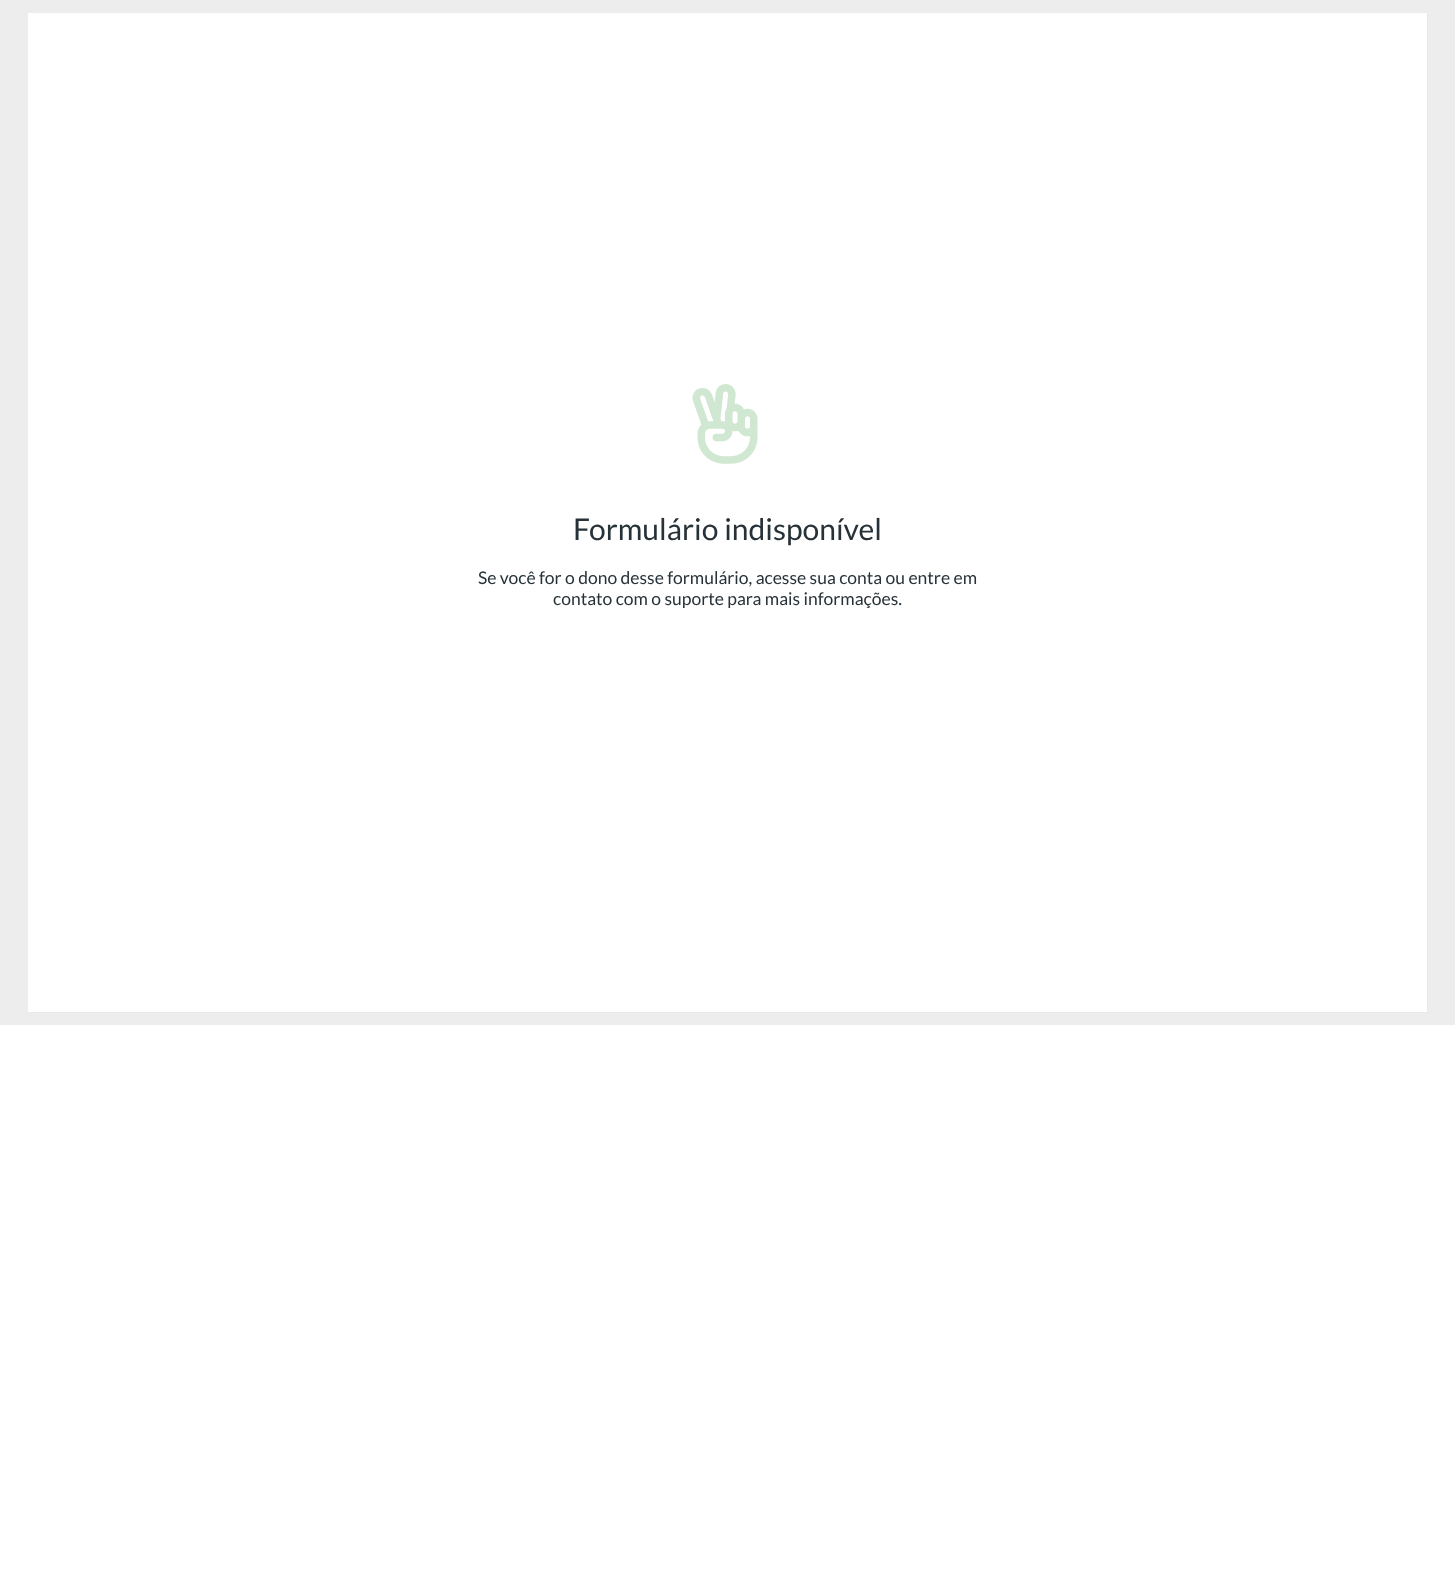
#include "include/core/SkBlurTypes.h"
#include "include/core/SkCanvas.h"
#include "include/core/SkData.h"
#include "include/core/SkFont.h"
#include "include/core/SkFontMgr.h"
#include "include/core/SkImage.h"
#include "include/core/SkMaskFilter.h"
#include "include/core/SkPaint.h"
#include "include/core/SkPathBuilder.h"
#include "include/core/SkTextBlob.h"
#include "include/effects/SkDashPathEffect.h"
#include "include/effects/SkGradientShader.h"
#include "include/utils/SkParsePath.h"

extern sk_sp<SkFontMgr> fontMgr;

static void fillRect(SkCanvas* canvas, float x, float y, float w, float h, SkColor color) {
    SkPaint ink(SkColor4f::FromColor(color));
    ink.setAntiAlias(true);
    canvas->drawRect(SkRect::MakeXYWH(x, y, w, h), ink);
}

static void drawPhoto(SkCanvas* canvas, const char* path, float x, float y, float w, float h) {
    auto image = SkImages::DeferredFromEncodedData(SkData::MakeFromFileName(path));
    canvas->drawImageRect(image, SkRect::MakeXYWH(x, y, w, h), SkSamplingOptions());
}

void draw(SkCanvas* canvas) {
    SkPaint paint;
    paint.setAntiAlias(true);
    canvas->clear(0xFFFFFFFF);
    fillRect(canvas, 0, 0, 1455, 1025, 0xFFEDEDED);
    fillRect(canvas, 28, 13, 1400, 1000, 0xFFE3E3E3);
    drawPhoto(canvas, "assets/img1.png", 28, 13, 1400, 1000);
}
